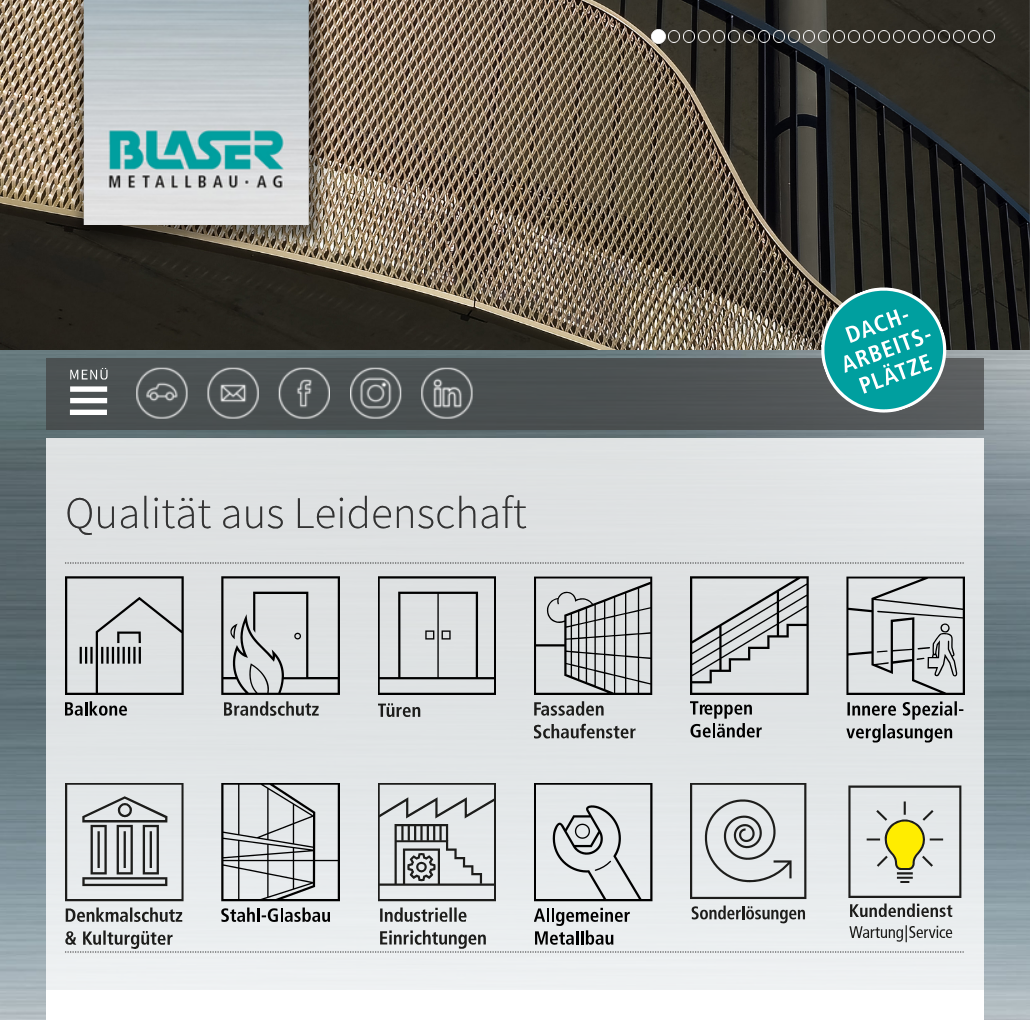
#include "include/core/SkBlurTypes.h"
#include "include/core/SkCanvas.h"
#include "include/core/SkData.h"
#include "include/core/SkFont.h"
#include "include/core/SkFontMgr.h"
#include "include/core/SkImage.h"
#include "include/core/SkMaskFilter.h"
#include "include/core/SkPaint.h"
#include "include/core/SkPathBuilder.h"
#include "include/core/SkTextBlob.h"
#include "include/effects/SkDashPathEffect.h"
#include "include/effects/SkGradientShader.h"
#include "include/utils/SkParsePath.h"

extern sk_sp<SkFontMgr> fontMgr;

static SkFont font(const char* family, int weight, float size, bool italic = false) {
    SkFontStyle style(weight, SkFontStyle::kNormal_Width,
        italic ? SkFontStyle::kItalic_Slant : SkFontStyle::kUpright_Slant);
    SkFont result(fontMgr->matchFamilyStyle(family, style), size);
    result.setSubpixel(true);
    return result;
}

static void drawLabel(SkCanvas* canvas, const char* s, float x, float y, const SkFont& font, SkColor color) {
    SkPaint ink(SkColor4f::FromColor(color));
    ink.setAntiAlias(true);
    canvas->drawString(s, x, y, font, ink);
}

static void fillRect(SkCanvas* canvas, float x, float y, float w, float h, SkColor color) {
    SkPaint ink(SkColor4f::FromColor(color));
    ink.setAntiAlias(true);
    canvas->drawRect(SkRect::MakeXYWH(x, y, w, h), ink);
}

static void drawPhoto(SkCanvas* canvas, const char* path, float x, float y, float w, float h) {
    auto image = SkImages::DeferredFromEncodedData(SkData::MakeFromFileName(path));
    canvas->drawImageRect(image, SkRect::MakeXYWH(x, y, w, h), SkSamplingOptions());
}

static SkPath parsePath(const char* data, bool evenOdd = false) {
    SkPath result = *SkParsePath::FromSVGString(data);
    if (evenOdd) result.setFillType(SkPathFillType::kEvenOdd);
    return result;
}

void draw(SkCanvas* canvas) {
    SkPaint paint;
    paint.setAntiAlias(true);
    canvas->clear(0xFFFFFFFF);
    drawPhoto(canvas, "assets/img1.png", 0, 0, 1030, 1020);
    drawPhoto(canvas, "assets/img2.png", 0, 0, 1030, 350);
    paint.setColor(0xFFFFFFFF);
    canvas->drawCircle(658.5f, 36.5f, 7, paint);
    paint.setStroke(true);
    paint.setStrokeWidth(1);
    canvas->drawCircle(658.5f, 36.5f, 7, paint);
    canvas->drawRoundRect(SkRect::MakeXYWH(668.5f, 30.5f, 11, 12), 5.5f, 5.5f, paint);
    canvas->drawRoundRect(SkRect::MakeXYWH(683.5f, 30.5f, 11, 12), 5.5f, 5.5f, paint);
    canvas->drawRoundRect(SkRect::MakeXYWH(698.5f, 30.5f, 11, 12), 5.5f, 5.5f, paint);
    canvas->drawRoundRect(SkRect::MakeXYWH(713.5f, 30.5f, 11, 12), 5.5f, 5.5f, paint);
    canvas->drawRoundRect(SkRect::MakeXYWH(728.5f, 30.5f, 11, 12), 5.5f, 5.5f, paint);
    canvas->drawRoundRect(SkRect::MakeXYWH(743.5f, 30.5f, 11, 12), 5.5f, 5.5f, paint);
    canvas->drawRoundRect(SkRect::MakeXYWH(758.5f, 30.5f, 11, 12), 5.5f, 5.5f, paint);
    canvas->drawRoundRect(SkRect::MakeXYWH(773.5f, 30.5f, 11, 12), 5.5f, 5.5f, paint);
    canvas->drawRoundRect(SkRect::MakeXYWH(788.5f, 30.5f, 11, 12), 5.5f, 5.5f, paint);
    canvas->drawRoundRect(SkRect::MakeXYWH(803.5f, 30.5f, 11, 12), 5.5f, 5.5f, paint);
    canvas->drawRoundRect(SkRect::MakeXYWH(818.5f, 30.5f, 11, 12), 5.5f, 5.5f, paint);
    canvas->drawRoundRect(SkRect::MakeXYWH(833.5f, 30.5f, 11, 12), 5.5f, 5.5f, paint);
    canvas->drawRoundRect(SkRect::MakeXYWH(848.5f, 30.5f, 11, 12), 5.5f, 5.5f, paint);
    canvas->drawRoundRect(SkRect::MakeXYWH(863.5f, 30.5f, 11, 12), 5.5f, 5.5f, paint);
    canvas->drawRoundRect(SkRect::MakeXYWH(878.5f, 30.5f, 11, 12), 5.5f, 5.5f, paint);
    canvas->drawRoundRect(SkRect::MakeXYWH(893.5f, 30.5f, 11, 12), 5.5f, 5.5f, paint);
    canvas->drawRoundRect(SkRect::MakeXYWH(908.5f, 30.5f, 11, 12), 5.5f, 5.5f, paint);
    canvas->drawRoundRect(SkRect::MakeXYWH(923.5f, 30.5f, 11, 12), 5.5f, 5.5f, paint);
    canvas->drawRoundRect(SkRect::MakeXYWH(938.5f, 30.5f, 11, 12), 5.5f, 5.5f, paint);
    canvas->drawRoundRect(SkRect::MakeXYWH(953.5f, 30.5f, 11, 12), 5.5f, 5.5f, paint);
    canvas->drawRoundRect(SkRect::MakeXYWH(968.5f, 30.5f, 11, 12), 5.5f, 5.5f, paint);
    canvas->drawRoundRect(SkRect::MakeXYWH(983.5f, 30.5f, 11, 12), 5.5f, 5.5f, paint);
    paint.setStroke(false);
    paint.setColor(0x7D000000);
    paint.setMaskFilter(SkMaskFilter::MakeBlur(kNormal_SkBlurStyle, 6));
    canvas->drawRect(SkRect::MakeXYWH(80, 0, 238, 238), paint);
    paint.setMaskFilter(nullptr);
    drawPhoto(canvas, "assets/img3.png", 83, 0, 226, 225);
    fillRect(canvas, 46, 358, 938, 72, 0xB3404040);
    drawPhoto(canvas, "assets/img4.png", 821, 287, 126, 126);
    drawPhoto(canvas, "assets/img5.png", 69, 367, 39, 48);
    drawPhoto(canvas, "assets/img6.png", 136, 367, 52, 52);
    drawPhoto(canvas, "assets/img7.png", 207, 367, 52, 52);
    drawPhoto(canvas, "assets/img8.png", 278, 367, 52, 52);
    drawPhoto(canvas, "assets/img9.png", 350, 367, 52, 52);
    drawPhoto(canvas, "assets/img10.png", 421, 367, 52, 52);
    fillRect(canvas, 46, 438, 938, 552, 0xCCFFFFFF);
    paint.setStroke(true);
    paint.setStrokeWidth(1.2f);
    paint.setColor(0xFF333333);
    paint.setPathEffect(SkDashPathEffect::Make({{1.25f, 1.25f}}, 0));
    canvas->drawPath(parsePath("M65 563H965"), paint);
    paint.setPathEffect(nullptr);
    SkFont font1 = font("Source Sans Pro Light", 300, 45);
    drawLabel(canvas, "Qualität aus Leidenschaft", 65, 528, font1, 0xFF333333);
    drawPhoto(canvas, "assets/img11.png", 65, 576, 119, 140);
    drawPhoto(canvas, "assets/img12.png", 221, 576, 119, 140);
    drawPhoto(canvas, "assets/img13.png", 378, 576, 118, 141);
    drawPhoto(canvas, "assets/img14.png", 534, 576, 119, 163);
    drawPhoto(canvas, "assets/img15.png", 690, 576, 119, 162);
    drawPhoto(canvas, "assets/img16.png", 846, 576, 119, 167);
    drawPhoto(canvas, "assets/img17.png", 65, 783, 119, 166);
    drawPhoto(canvas, "assets/img18.png", 221, 783, 119, 139);
    drawPhoto(canvas, "assets/img19.png", 378, 783, 118, 166);
    drawPhoto(canvas, "assets/img20.png", 534, 783, 119, 162);
    drawPhoto(canvas, "assets/img21.png", 690, 783, 117, 141);
    drawPhoto(canvas, "assets/img22.png", 848, 785, 114, 158);
    paint.setPathEffect(SkDashPathEffect::Make({{1.25f, 1.25f}}, 0));
    canvas->drawPath(parsePath("M65 952H965"), paint);
    paint.setPathEffect(nullptr);
    fillRect(canvas, 46, 990, 938, 30, 0xFFFFFFFF);
}
